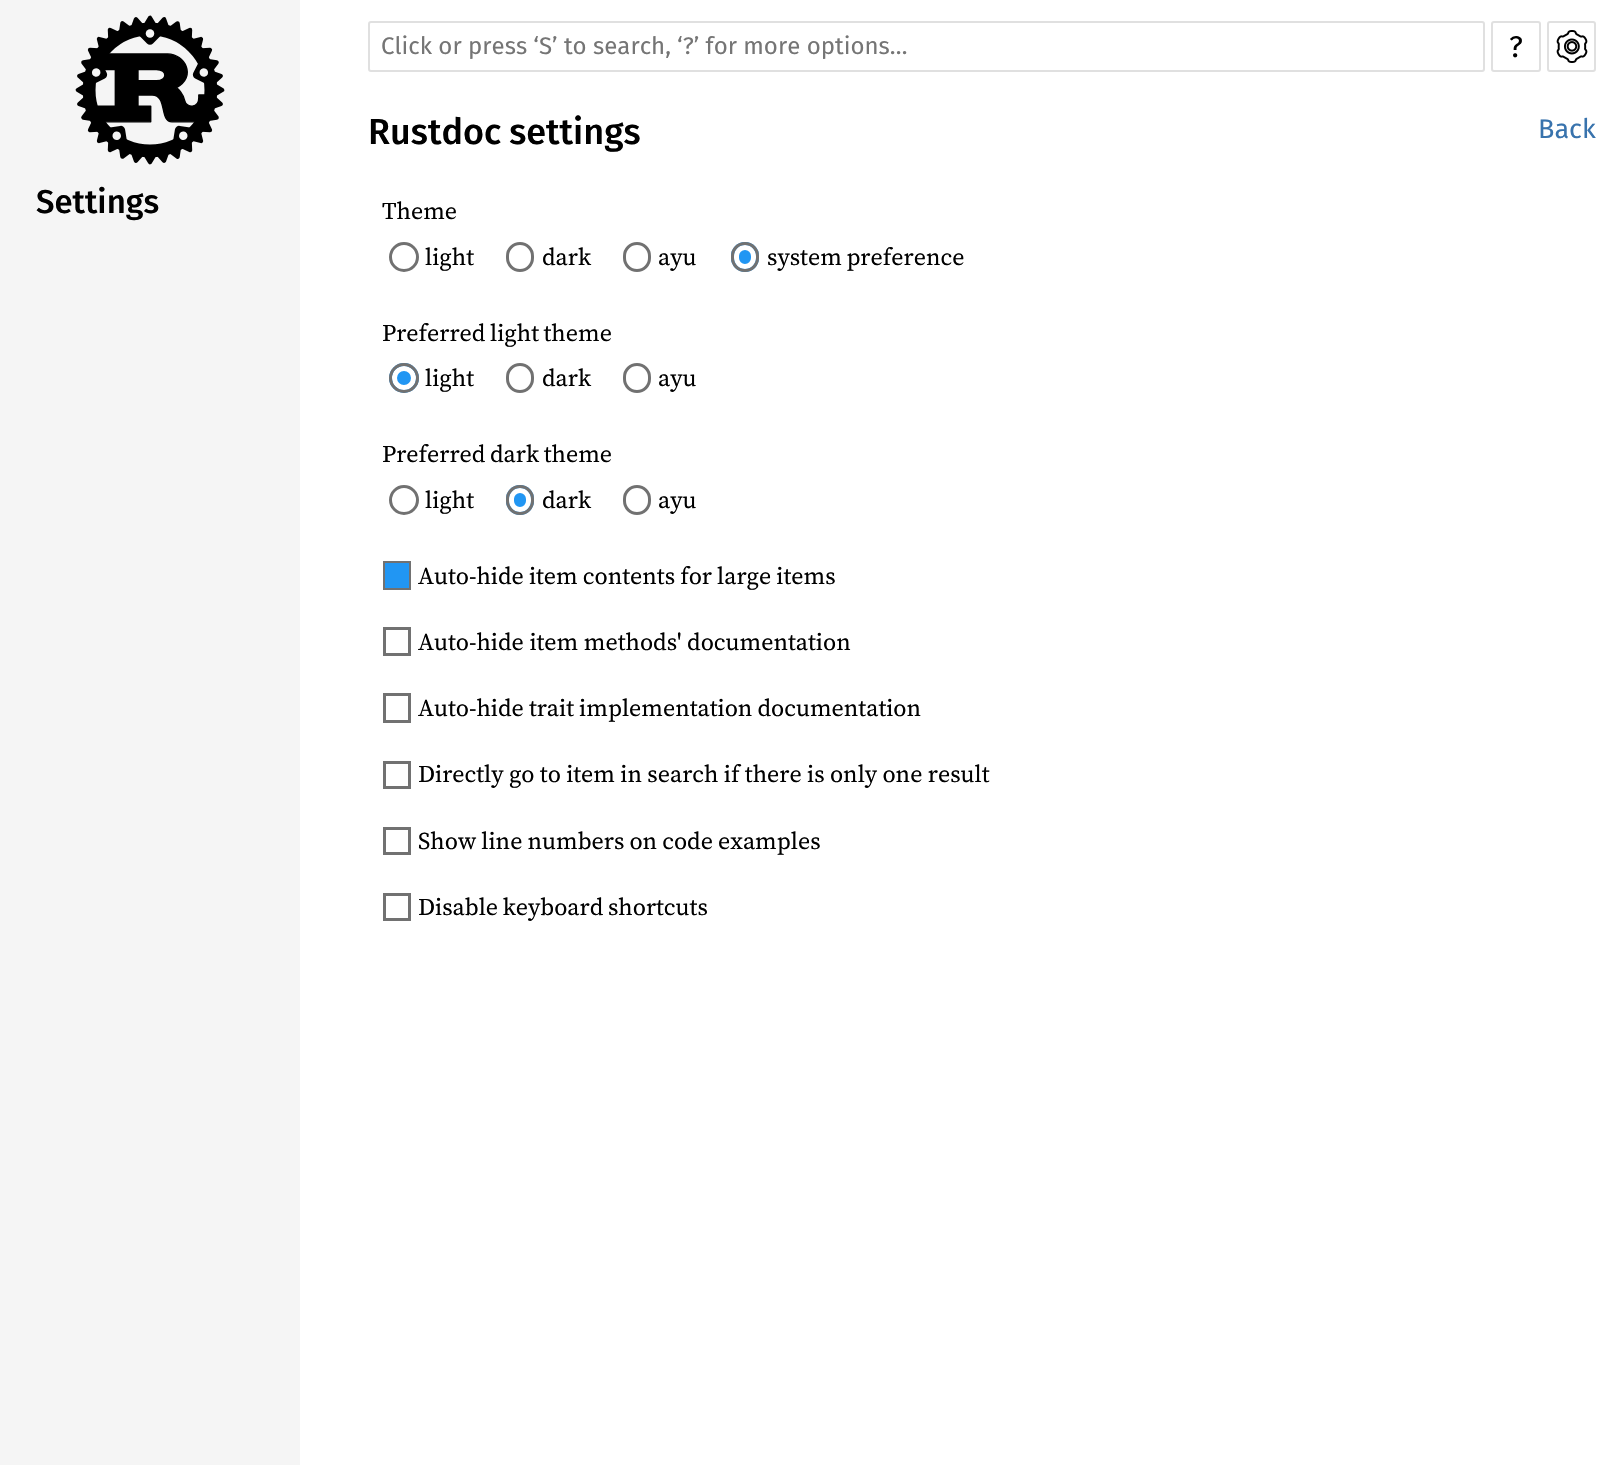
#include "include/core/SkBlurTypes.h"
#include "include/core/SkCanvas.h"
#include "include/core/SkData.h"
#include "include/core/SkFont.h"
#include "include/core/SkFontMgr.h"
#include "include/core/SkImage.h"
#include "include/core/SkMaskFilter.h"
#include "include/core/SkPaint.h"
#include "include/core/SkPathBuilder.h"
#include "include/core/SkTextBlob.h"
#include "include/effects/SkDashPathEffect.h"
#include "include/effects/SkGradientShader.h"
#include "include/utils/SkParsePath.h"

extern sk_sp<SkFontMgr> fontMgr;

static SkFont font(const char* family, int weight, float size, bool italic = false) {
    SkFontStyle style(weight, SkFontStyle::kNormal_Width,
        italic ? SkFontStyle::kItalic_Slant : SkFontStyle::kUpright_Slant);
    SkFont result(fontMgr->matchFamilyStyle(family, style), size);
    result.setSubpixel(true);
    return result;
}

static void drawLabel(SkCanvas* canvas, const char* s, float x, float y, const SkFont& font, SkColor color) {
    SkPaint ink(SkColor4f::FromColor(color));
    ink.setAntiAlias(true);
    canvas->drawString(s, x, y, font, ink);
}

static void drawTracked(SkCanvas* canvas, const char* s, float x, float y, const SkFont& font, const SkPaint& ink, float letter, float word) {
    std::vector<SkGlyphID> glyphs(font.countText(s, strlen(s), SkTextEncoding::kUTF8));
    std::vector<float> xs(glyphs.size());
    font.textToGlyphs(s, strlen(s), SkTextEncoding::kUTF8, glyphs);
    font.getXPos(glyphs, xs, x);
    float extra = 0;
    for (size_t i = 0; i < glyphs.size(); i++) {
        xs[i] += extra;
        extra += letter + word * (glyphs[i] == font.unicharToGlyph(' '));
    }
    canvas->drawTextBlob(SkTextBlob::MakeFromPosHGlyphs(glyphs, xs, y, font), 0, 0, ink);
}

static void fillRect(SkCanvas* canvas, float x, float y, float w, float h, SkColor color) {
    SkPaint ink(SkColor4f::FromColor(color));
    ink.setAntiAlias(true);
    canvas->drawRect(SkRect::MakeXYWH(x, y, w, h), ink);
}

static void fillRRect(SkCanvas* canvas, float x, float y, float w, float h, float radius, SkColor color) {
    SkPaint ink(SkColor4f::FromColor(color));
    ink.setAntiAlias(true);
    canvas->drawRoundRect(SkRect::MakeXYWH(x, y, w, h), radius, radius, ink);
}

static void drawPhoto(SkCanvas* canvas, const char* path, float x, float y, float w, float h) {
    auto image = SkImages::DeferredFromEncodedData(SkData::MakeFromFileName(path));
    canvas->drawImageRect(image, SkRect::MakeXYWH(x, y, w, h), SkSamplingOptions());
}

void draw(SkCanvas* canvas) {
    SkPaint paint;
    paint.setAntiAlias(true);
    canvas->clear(0xFFFFFFFF);
    fillRect(canvas, 0, 0, 300, 1465, 0xFFF5F5F5);
    drawPhoto(canvas, "assets/img1.png", 75, 15, 150, 150);
    SkFont font1 = font("Fira Sans", 500, 33);
    drawLabel(canvas, "Settings", 36, 213, font1, 0xFF000000);
    paint.setStroke(true);
    paint.setStrokeWidth(2);
    paint.setColor(0xFFE0E0E0);
    canvas->drawRoundRect(SkRect::MakeXYWH(369, 22, 1115, 49), 2, 2, paint);
    SkFont font2 = font("Fira Sans", 400, 24);
    drawLabel(canvas, "Click or press ‘S’ to search, ‘?’ for more options…", 381, 54, font2, 0xFF757575);
    canvas->drawRoundRect(SkRect::MakeXYWH(1492, 22, 48, 49), 2, 2, paint);
    SkFont font3 = font("Fira Sans", 400, 30);
    drawLabel(canvas, "?", 1509, 57, font3, 0xFF000000);
    canvas->drawRoundRect(SkRect::MakeXYWH(1548, 22, 47, 49), 2, 2, paint);
    drawPhoto(canvas, "assets/img2.png", 1556, 30, 32, 33);
    SkFont font4 = font("Fira Sans", 500, 36);
    paint.setStroke(false);
    paint.setColor(0xFF000000);
    drawTracked(canvas, "Rustdoc settings", 368, 144, font4, paint, 0, -1);
    SkFont font5 = font("Fira Sans", 400, 27);
    drawLabel(canvas, "Back", 1538, 138, font5, 0xFF3873AD);
    SkFont font6 = font("Source Serif 4", 400, 24);
    drawLabel(canvas, "Theme", 382, 219, font6, 0xFF000000);
    paint.setStroke(true);
    paint.setStrokeWidth(3);
    paint.setColor(0xFF717171);
    canvas->drawCircle(404, 257, 13.5f, paint);
    drawLabel(canvas, "light", 425, 265, font6, 0xFF000000);
    canvas->drawRoundRect(SkRect::MakeXYWH(507.5f, 243.5f, 25, 27), 12.5f, 12.5f, paint);
    drawLabel(canvas, "dark", 542, 265, font6, 0xFF000000);
    canvas->drawRoundRect(SkRect::MakeXYWH(624.5f, 243.5f, 25, 27), 12.5f, 12.5f, paint);
    drawLabel(canvas, "ayu", 658, 265, font6, 0xFF000000);
    fillRRect(canvas, 731, 242, 28, 30, 14, 0xFF2196F3);
    paint.setStrokeWidth(5);
    paint.setColor(0xFFFFFFFF);
    canvas->drawRoundRect(SkRect::MakeXYWH(736.5f, 247.5f, 17, 19), 8.5f, 8.5f, paint);
    paint.setStrokeWidth(3);
    paint.setColor(0xFF717171);
    canvas->drawRoundRect(SkRect::MakeXYWH(732.5f, 243.5f, 25, 27), 12.5f, 12.5f, paint);
    paint.setStroke(false);
    paint.setColor(0xFF000000);
    drawTracked(canvas, "system preference", 767, 265, font6, paint, 0, -1);
    drawTracked(canvas, "Preferred light theme", 382, 341, font6, paint, 0, -1);
    paint.setColor(0xFF2196F3);
    canvas->drawCircle(404, 378, 15, paint);
    paint.setStroke(true);
    paint.setStrokeWidth(5);
    paint.setColor(0xFFFFFFFF);
    canvas->drawCircle(404, 378, 9.5f, paint);
    paint.setStrokeWidth(3);
    paint.setColor(0xFF717171);
    canvas->drawCircle(404, 378, 13.5f, paint);
    drawLabel(canvas, "light", 425, 386, font6, 0xFF000000);
    canvas->drawRoundRect(SkRect::MakeXYWH(507.5f, 364.5f, 25, 27), 12.5f, 12.5f, paint);
    drawLabel(canvas, "dark", 542, 386, font6, 0xFF000000);
    canvas->drawRoundRect(SkRect::MakeXYWH(624.5f, 364.5f, 25, 27), 12.5f, 12.5f, paint);
    drawLabel(canvas, "ayu", 658, 386, font6, 0xFF000000);
    paint.setStroke(false);
    paint.setColor(0xFF000000);
    drawTracked(canvas, "Preferred dark theme", 382, 462, font6, paint, 0, -1);
    paint.setStroke(true);
    paint.setColor(0xFF717171);
    canvas->drawCircle(404, 500, 13.5f, paint);
    drawLabel(canvas, "light", 425, 508, font6, 0xFF000000);
    fillRRect(canvas, 506, 485, 28, 30, 14, 0xFF2196F3);
    paint.setStrokeWidth(5);
    paint.setColor(0xFFFFFFFF);
    canvas->drawRoundRect(SkRect::MakeXYWH(511.5f, 490.5f, 17, 19), 8.5f, 8.5f, paint);
    paint.setStrokeWidth(3);
    paint.setColor(0xFF717171);
    canvas->drawRoundRect(SkRect::MakeXYWH(507.5f, 486.5f, 25, 27), 12.5f, 12.5f, paint);
    drawLabel(canvas, "dark", 542, 508, font6, 0xFF000000);
    canvas->drawRoundRect(SkRect::MakeXYWH(624.5f, 486.5f, 25, 27), 12.5f, 12.5f, paint);
    drawLabel(canvas, "ayu", 658, 508, font6, 0xFF000000);
    paint.setStroke(false);
    paint.setColor(0xFF2196F3);
    canvas->drawRect(SkRect::MakeXYWH(384, 562, 26, 27), paint);
    paint.setStroke(true);
    paint.setStrokeWidth(2);
    paint.setColor(0xFF717171);
    canvas->drawRect(SkRect::MakeXYWH(384, 562, 26, 27), paint);
    paint.setStroke(false);
    paint.setColor(0xFF000000);
    drawTracked(canvas, "Auto-hide item contents for large items", 418, 584, font6, paint, 0, -0.5f);
    paint.setStroke(true);
    paint.setStrokeWidth(3);
    paint.setColor(0xFF717171);
    canvas->drawRect(SkRect::MakeXYWH(384.5f, 628.5f, 25, 26), paint);
    drawLabel(canvas, "Auto-hide item methods' documentation", 418, 650, font6, 0xFF000000);
    canvas->drawRect(SkRect::MakeXYWH(384.5f, 694.5f, 25, 27), paint);
    paint.setStroke(false);
    paint.setColor(0xFF000000);
    drawTracked(canvas, "Auto-hide trait implementation documentation", 418, 716, font6, paint, 0, -0.5f);
    paint.setStroke(true);
    paint.setColor(0xFF717171);
    canvas->drawRect(SkRect::MakeXYWH(384.5f, 762.5f, 25, 25), paint);
    paint.setStroke(false);
    paint.setColor(0xFF000000);
    drawTracked(canvas, "Directly go to item in search if there is only one result", 418, 782, font6, paint, 0, -0.25f);
    paint.setStroke(true);
    paint.setColor(0xFF717171);
    canvas->drawRect(SkRect::MakeXYWH(384.5f, 828.5f, 25, 25), paint);
    paint.setStroke(false);
    paint.setColor(0xFF000000);
    drawTracked(canvas, "Show line numbers on code examples", 418, 849, font6, paint, 0, -0.5f);
    paint.setStroke(true);
    paint.setColor(0xFF717171);
    canvas->drawRect(SkRect::MakeXYWH(384.5f, 894.5f, 25, 25), paint);
    paint.setStroke(false);
    paint.setColor(0xFF000000);
    drawTracked(canvas, "Disable keyboard shortcuts", 418, 915, font6, paint, 0, -1);
}
